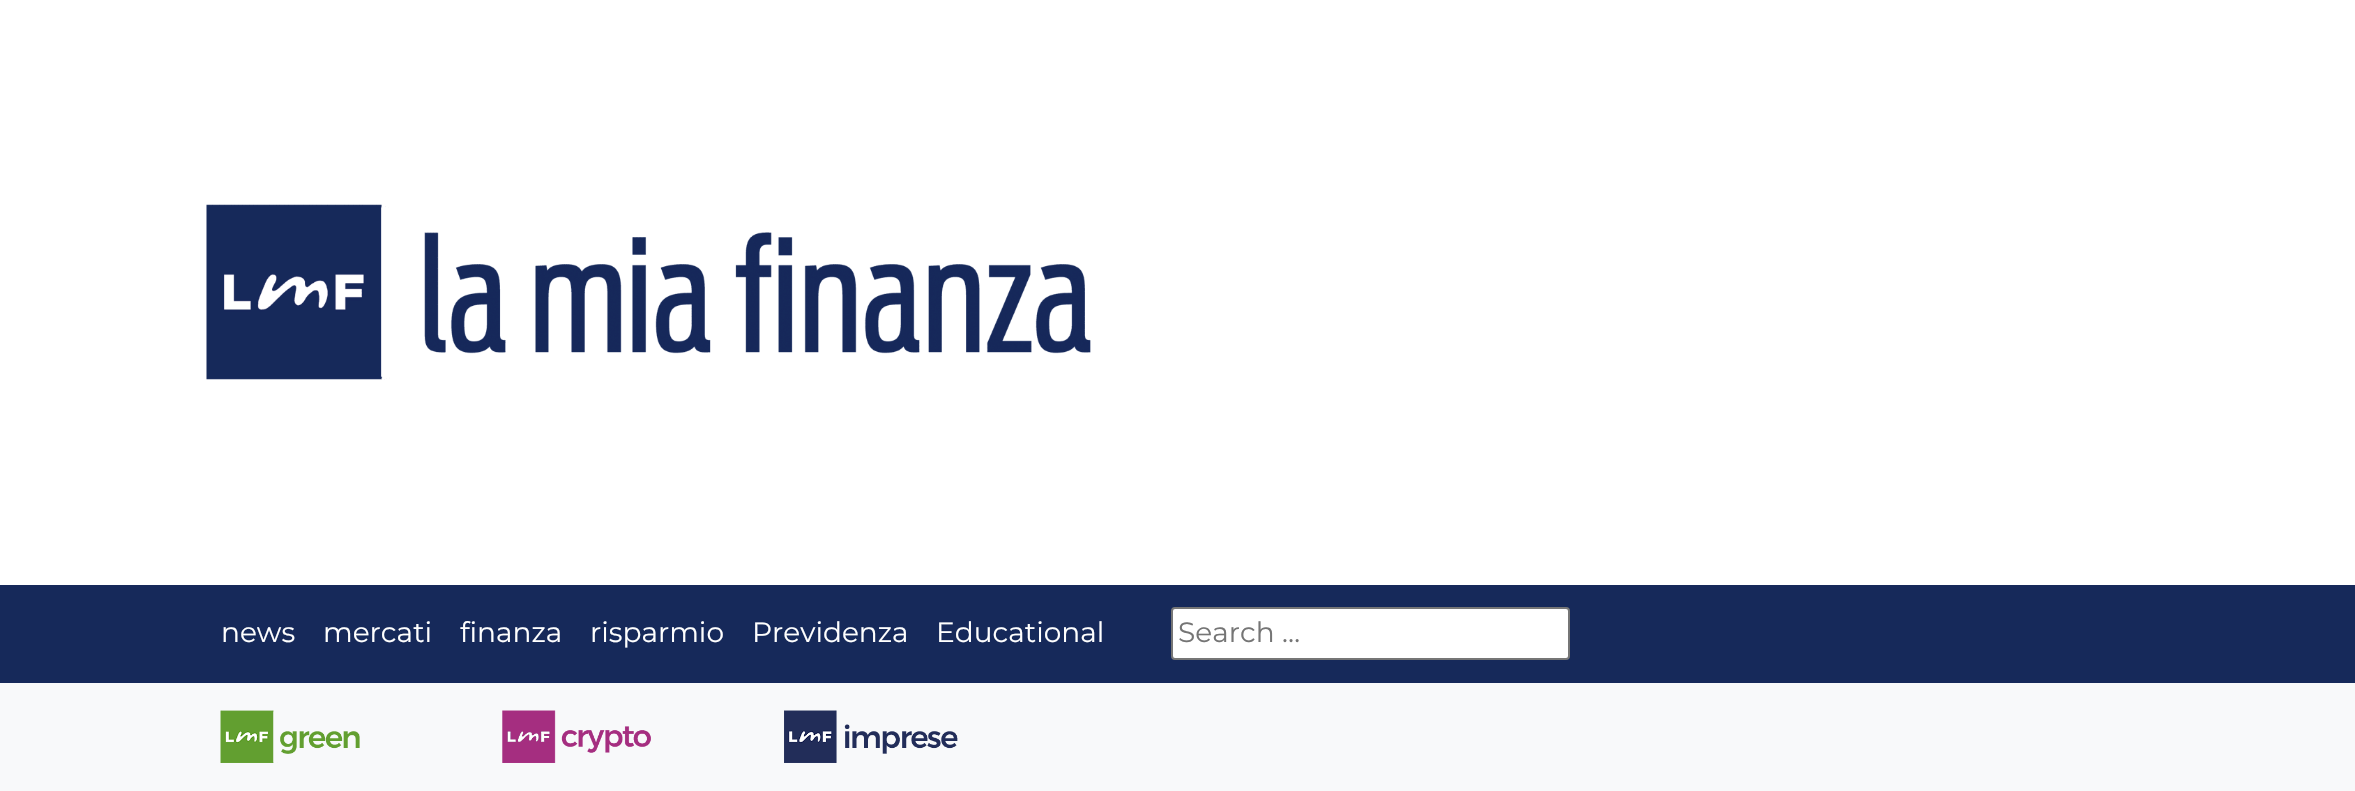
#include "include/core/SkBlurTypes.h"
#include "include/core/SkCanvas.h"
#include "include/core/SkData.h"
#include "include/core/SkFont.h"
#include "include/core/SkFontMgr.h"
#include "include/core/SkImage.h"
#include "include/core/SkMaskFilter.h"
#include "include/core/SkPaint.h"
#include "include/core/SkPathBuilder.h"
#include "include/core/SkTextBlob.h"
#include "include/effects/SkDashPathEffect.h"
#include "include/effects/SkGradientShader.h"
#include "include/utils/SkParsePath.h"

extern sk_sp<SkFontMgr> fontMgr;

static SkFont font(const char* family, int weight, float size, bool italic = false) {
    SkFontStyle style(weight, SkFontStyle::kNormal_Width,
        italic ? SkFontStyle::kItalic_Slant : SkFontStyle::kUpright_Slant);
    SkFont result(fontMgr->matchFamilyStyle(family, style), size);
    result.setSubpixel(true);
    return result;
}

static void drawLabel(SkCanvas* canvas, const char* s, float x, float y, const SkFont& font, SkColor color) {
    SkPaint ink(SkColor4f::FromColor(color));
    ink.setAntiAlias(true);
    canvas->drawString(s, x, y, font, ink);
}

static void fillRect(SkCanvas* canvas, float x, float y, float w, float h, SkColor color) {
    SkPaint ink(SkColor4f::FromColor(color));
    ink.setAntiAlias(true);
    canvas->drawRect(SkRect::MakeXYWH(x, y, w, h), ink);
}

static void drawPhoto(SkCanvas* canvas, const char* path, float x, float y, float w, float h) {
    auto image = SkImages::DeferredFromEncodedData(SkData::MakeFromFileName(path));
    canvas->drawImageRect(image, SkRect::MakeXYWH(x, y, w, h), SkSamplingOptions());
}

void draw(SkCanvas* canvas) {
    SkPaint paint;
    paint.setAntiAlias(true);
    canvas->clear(0xFFFFFFFF);
    drawPhoto(canvas, "assets/img1.png", 206, 204, 885, 176);
    fillRect(canvas, 0, 585, 2355, 98, 0xFF16295A);
    SkFont font1 = font("Montserrat", 400, 28);
    drawLabel(canvas, "news", 221, 642, font1, 0xFFFFFFFF);
    drawLabel(canvas, "mercati", 323, 642, font1, 0xFFFFFFFF);
    drawLabel(canvas, "finanza", 460, 642, font1, 0xFFFFFFFF);
    drawLabel(canvas, "risparmio", 590, 642, font1, 0xFFFFFFFF);
    drawLabel(canvas, "Previdenza", 752, 642, font1, 0xFFFFFFFF);
    drawLabel(canvas, "Educational", 936, 642, font1, 0xFFFFFFFF);
    paint.setColor(0xFFFFFFFF);
    canvas->drawRoundRect(SkRect::MakeXYWH(1172, 608, 397, 51), 3, 3, paint);
    paint.setStroke(true);
    paint.setStrokeWidth(2);
    paint.setColor(0xFF767676);
    canvas->drawRoundRect(SkRect::MakeXYWH(1172, 608, 397, 51), 3, 3, paint);
    drawLabel(canvas, "Search …", 1178, 642, font1, 0xFF757575);
    fillRect(canvas, 0, 683, 2355, 108, 0xFFF8F9FA);
    drawPhoto(canvas, "assets/img2.png", 220, 710, 140, 53);
    drawPhoto(canvas, "assets/img3.png", 502, 710, 149, 53);
    drawPhoto(canvas, "assets/img4.png", 784, 710, 174, 53);
}
